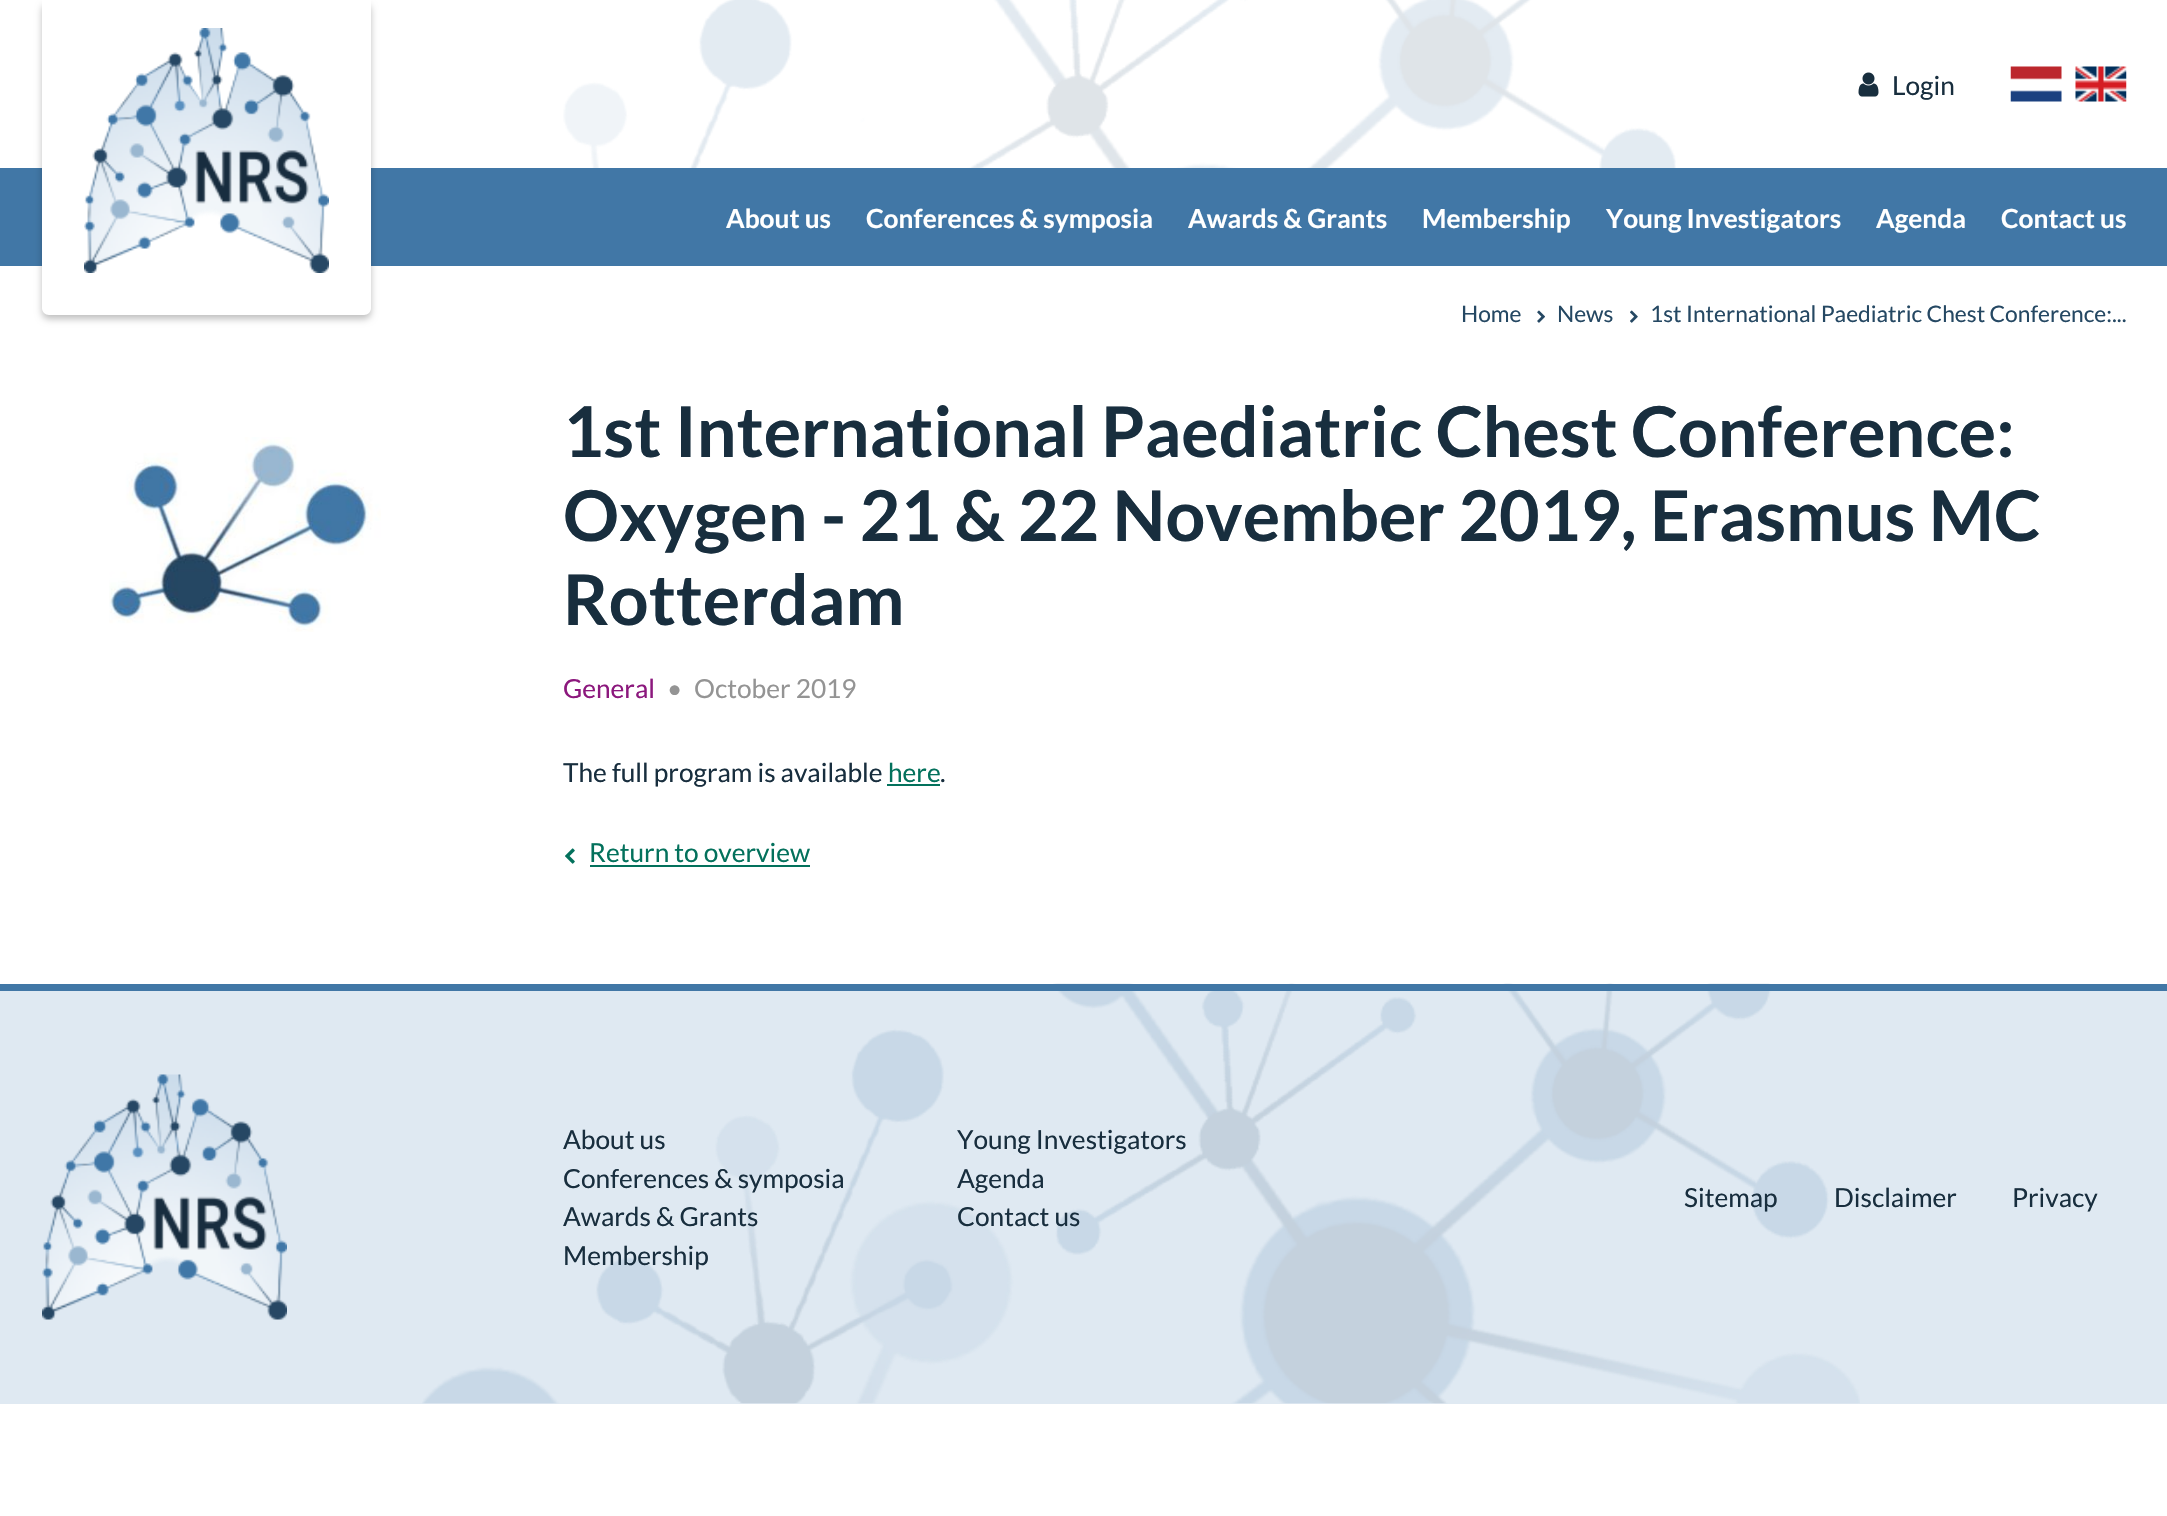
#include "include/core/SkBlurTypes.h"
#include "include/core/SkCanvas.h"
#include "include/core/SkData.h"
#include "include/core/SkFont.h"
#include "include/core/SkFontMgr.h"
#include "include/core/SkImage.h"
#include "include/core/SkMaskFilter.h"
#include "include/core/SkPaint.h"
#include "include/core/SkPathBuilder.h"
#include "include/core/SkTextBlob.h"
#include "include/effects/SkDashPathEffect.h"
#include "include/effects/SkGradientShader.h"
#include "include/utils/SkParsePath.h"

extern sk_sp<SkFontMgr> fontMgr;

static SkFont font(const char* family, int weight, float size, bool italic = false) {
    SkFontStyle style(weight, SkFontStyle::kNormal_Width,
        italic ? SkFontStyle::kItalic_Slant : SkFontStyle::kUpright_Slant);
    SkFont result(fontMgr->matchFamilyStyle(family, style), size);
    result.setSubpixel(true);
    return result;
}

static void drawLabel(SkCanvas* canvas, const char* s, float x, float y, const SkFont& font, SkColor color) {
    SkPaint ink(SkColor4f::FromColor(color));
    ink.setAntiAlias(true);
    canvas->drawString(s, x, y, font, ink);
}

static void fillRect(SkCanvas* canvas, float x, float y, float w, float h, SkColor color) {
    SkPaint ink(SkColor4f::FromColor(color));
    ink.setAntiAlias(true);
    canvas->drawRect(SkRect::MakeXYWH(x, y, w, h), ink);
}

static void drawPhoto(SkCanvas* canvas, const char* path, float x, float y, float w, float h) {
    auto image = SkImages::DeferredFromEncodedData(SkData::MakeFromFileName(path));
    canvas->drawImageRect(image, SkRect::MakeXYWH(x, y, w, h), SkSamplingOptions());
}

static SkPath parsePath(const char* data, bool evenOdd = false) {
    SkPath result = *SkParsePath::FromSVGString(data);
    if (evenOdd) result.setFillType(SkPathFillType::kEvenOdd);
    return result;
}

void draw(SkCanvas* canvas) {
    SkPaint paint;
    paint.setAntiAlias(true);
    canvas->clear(0xFFFFFFFF);
    drawPhoto(canvas, "assets/img1.png", 563, 0, 1113, 168);
    fillRect(canvas, 0, 168, 2167, 98, 0xFF4177A6);
    paint.setColor(0x40000000);
    paint.setMaskFilter(SkMaskFilter::MakeBlur(kNormal_SkBlurStyle, 3.5f));
    canvas->drawRoundRect(SkRect::MakeXYWH(42, 4, 329, 315), 7, 7, paint);
    paint.setMaskFilter(nullptr);
    paint.setColor(0xFFFFFFFF);
    canvas->drawPath(parsePath("M42 0H371V308C371 312 368 315 364 315H49C45 315 42 312 42 308Z"), paint);
    drawPhoto(canvas, "assets/img2.png", 84, 28, 245, 245);
    drawPhoto(canvas, "assets/img3.png", 1858, 72, 21, 25);
    SkFont font1 = font("Lato", 400, 26.25f);
    drawLabel(canvas, "Login", 1892, 95, font1, 0xFF182E3E);
    drawPhoto(canvas, "assets/img4.png", 2010, 66, 52, 36);
    drawPhoto(canvas, "assets/img5.png", 2075, 66, 52, 36);
    SkFont font2 = font("Lato", 700, 26.25f);
    drawLabel(canvas, "About us", 726, 228, font2, 0xFFFFFFFF);
    drawLabel(canvas, "Conferences & symposia", 866, 228, font2, 0xFFFFFFFF);
    drawLabel(canvas, "Awards & Grants", 1188, 228, font2, 0xFFFFFFFF);
    drawLabel(canvas, "Membership", 1422, 228, font2, 0xFFFFFFFF);
    drawLabel(canvas, "Young Investigators", 1606, 228, font2, 0xFFFFFFFF);
    drawLabel(canvas, "Agenda", 1876, 228, font2, 0xFFFFFFFF);
    drawLabel(canvas, "Contact us", 2001, 228, font2, 0xFFFFFFFF);
    SkFont font3 = font("Lato", 400, 22.75f);
    drawLabel(canvas, "Home", 1461, 322, font3, 0xFF254863);
    drawPhoto(canvas, "assets/img6.png", 1537, 310, 8, 13);
    drawLabel(canvas, "News", 1557, 322, font3, 0xFF254863);
    drawPhoto(canvas, "assets/img7.png", 1630, 310, 8, 13);
    drawLabel(canvas, "1st International Paediatric Chest Conference:...", 1650, 322, font3, 0xFF254863);
    drawPhoto(canvas, "assets/img8.png", 109, 437, 272, 195);
    SkFont font4 = font("Lato", 700, 70);
    drawLabel(canvas, "1st International Paediatric Chest Conference:", 563, 457, font4, 0xFF182E3E);
    drawLabel(canvas, "Oxygen - 21 & 22 November 2019, Erasmus MC", 563, 541, font4, 0xFF182E3E);
    drawLabel(canvas, "Rotterdam", 563, 625, font4, 0xFF182E3E);
    drawLabel(canvas, "General", 563, 698, font1, 0xFF8C187D);
    drawLabel(canvas, "•", 667, 698, font1, 0xFF949494);
    drawLabel(canvas, "October 2019", 694, 698, font1, 0xFF949494);
    drawLabel(canvas, "The full program is available", 563, 782, font1, 0xFF182E3E);
    drawLabel(canvas, "here", 888, 782, font1, 0xFF03715C);
    fillRect(canvas, 887, 784, 53, 2, 0xFF03715C);
    drawLabel(canvas, ".", 940, 782, font1, 0xFF182E3E);
    drawPhoto(canvas, "assets/img9.png", 565, 848, 10, 16);
    drawLabel(canvas, "Return to overview", 589, 862, font1, 0xFF03715C);
    fillRect(canvas, 590, 865, 220, 2, 0xFF03715C);
    fillRect(canvas, 0, 991, 2167, 413, 0xFFDFE9F2);
    drawPhoto(canvas, "assets/img10.png", 422, 983, 1438, 421);
    fillRect(canvas, 0, 984, 2167, 7, 0xFF4177A6);
    drawPhoto(canvas, "assets/img11.png", 42, 1074, 245, 246);
    drawLabel(canvas, "About us", 563, 1149, font1, 0xFF182E3E);
    drawLabel(canvas, "Conferences & symposia", 563, 1188, font1, 0xFF182E3E);
    drawLabel(canvas, "Awards & Grants", 563, 1226, font1, 0xFF182E3E);
    drawLabel(canvas, "Membership", 563, 1265, font1, 0xFF182E3E);
    drawLabel(canvas, "Young Investigators", 957, 1149, font1, 0xFF182E3E);
    drawLabel(canvas, "Agenda", 957, 1188, font1, 0xFF182E3E);
    drawLabel(canvas, "Contact us", 957, 1226, font1, 0xFF182E3E);
    drawLabel(canvas, "Sitemap", 1684, 1207, font1, 0xFF182E3E);
    drawLabel(canvas, "Disclaimer", 1834, 1207, font1, 0xFF182E3E);
    drawLabel(canvas, "Privacy", 2012, 1207, font1, 0xFF182E3E);
}
